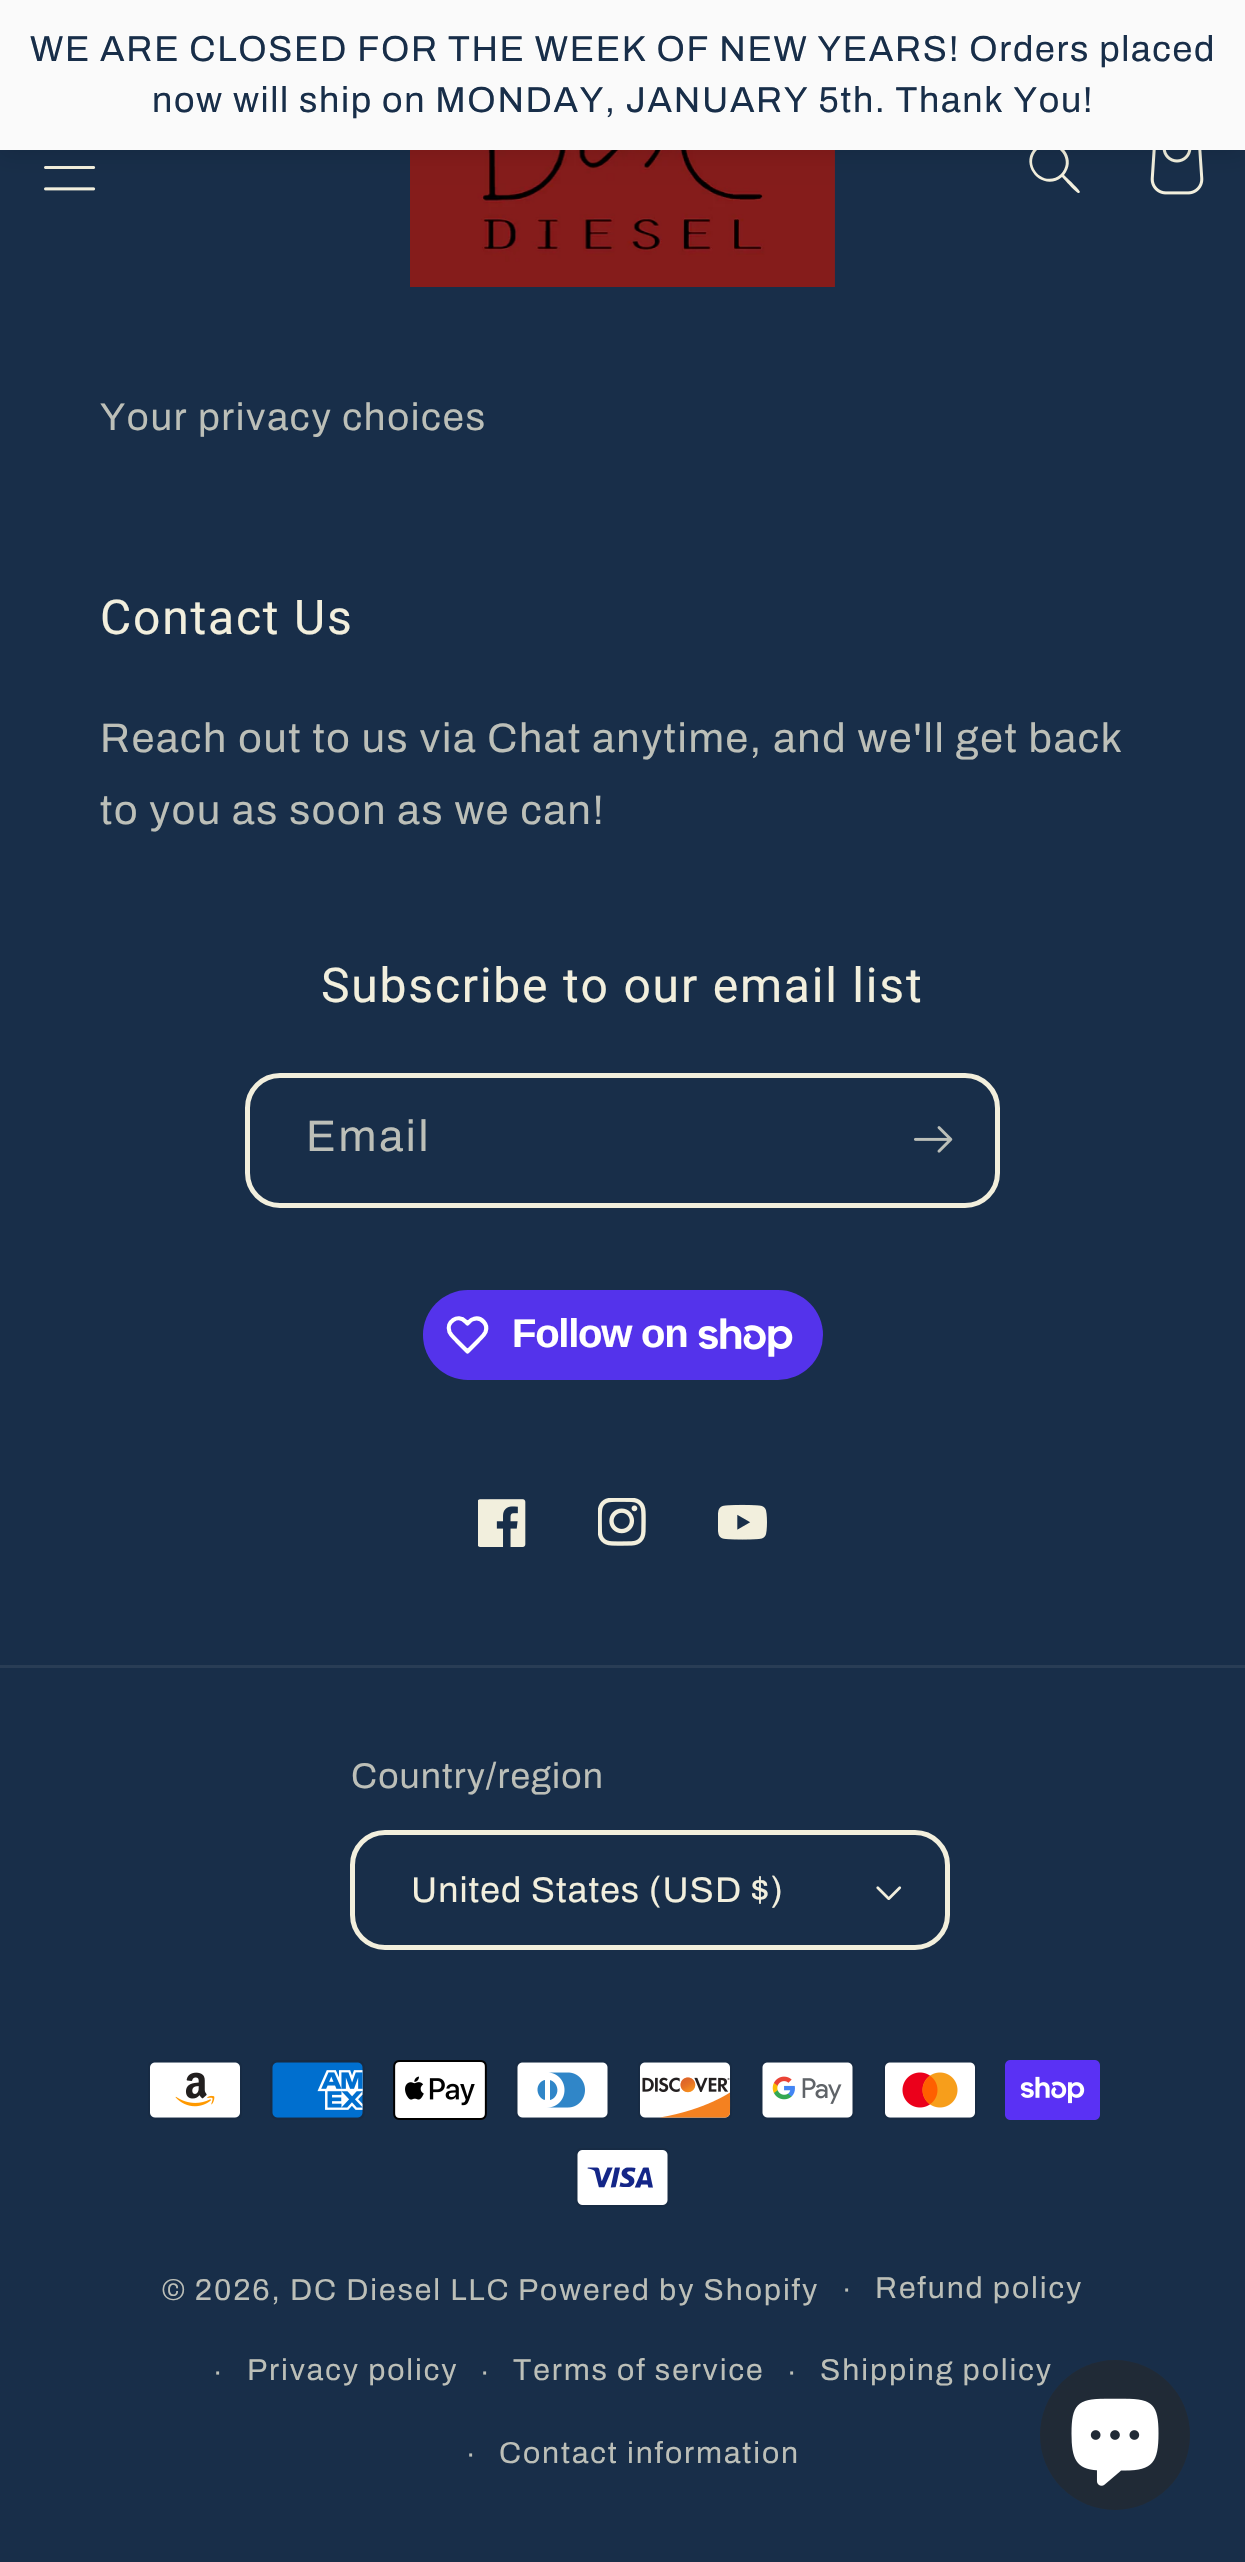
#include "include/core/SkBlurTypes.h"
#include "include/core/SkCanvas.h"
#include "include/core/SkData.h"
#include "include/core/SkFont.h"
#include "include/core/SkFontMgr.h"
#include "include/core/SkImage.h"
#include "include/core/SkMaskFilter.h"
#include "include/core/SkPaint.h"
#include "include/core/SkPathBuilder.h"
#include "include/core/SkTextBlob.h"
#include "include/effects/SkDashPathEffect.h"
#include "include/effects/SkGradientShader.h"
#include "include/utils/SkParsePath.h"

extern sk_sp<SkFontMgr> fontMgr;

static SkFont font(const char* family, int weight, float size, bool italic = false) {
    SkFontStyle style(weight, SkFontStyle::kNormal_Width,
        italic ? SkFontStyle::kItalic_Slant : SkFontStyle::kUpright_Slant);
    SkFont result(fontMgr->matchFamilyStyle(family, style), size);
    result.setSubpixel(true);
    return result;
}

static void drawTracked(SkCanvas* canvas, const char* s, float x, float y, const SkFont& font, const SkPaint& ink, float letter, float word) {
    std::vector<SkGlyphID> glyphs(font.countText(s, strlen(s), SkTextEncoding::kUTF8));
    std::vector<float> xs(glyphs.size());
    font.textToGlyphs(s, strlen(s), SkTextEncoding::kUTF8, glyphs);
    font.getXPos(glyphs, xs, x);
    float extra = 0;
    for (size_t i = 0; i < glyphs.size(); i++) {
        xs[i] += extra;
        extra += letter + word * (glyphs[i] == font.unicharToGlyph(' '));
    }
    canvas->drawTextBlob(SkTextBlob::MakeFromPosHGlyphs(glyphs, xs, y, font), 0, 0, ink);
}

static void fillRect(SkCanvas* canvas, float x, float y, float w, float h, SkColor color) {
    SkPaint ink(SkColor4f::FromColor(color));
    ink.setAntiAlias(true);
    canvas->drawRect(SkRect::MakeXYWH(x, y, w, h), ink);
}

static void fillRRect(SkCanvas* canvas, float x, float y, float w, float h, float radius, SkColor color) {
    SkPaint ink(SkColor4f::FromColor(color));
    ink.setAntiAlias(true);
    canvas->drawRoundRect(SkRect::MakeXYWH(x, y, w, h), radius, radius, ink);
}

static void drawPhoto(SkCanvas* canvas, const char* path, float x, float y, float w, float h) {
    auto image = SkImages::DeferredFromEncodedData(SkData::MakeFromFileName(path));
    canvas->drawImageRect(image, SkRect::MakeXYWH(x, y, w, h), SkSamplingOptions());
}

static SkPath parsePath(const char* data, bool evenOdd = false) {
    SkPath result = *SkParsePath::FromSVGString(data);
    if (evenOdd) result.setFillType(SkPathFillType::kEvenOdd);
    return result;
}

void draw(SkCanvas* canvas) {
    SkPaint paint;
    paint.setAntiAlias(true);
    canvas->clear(0xFF182E49);
    drawPhoto(canvas, "assets/img1.png", 44, 166, 52, 25);
    drawPhoto(canvas, "assets/img2.png", 410, 150, 425, 137);
    paint.setColor(0xFFF2EFDD);
    canvas->drawPath(parsePath("M1061 174C1045 189 1022 166 1037 150C1053 135 1076 158 1061 174ZM1062 177C1043 193 1018 165 1035 148C1053 131 1080 156 1064 175C1066 177 1080 190 1080 192L1079 193C1077 194 1064 179 1062 177Z", true), paint);
    drawPhoto(canvas, "assets/img3.png", 1150, 150, 54, 45);
    paint.setColor(0x1A000000);
    paint.setMaskFilter(SkMaskFilter::MakeBlur(kNormal_SkBlurStyle, 10));
    canvas->drawRect(SkRect::MakeXYWH(0, 5, 1245, 150), paint);
    paint.setMaskFilter(nullptr);
    fillRect(canvas, 0, 0, 1245, 150, 0xFFFAFAFA);
    SkFont font1 = font("Archivo", 400, 36);
    paint.setColor(0xFF182E49);
    drawTracked(canvas, "WE ARE CLOSED FOR THE WEEK OF NEW YEARS! Orders placed", 30, 61, font1, paint, 1.65f, 0);
    drawTracked(canvas, "now will ship on MONDAY, JANUARY 5th. Thank You!", 152, 112, font1, paint, 1.65f, 0);
    SkFont font2 = font("Archivo", 400, 38.5f);
    paint.setColor(0xFFBCBFB8);
    drawTracked(canvas, "Your privacy choices", 100, 430, font2, paint, 1.65f, 0);
    SkFont font3 = font("Roboto", 400, 48);
    paint.setColor(0xFFF2EFDD);
    drawTracked(canvas, "Contact Us", 100, 634, font3, paint, 1.8f, 0);
    SkFont font4 = font("Archivo", 400, 41.25f);
    paint.setColor(0xFFBCBFB8);
    drawTracked(canvas, "Reach out to us via Chat anytime, and we'll get back", 100, 752, font4, paint, 1.65f, 0);
    drawTracked(canvas, "to you as soon as we can!", 100, 824, font4, paint, 1.65f, 0);
    paint.setColor(0xFFF2EFDD);
    drawTracked(canvas, "Subscribe to our email list", 321, 1002, font3, paint, 1.8f, 0);
    paint.setStroke(true);
    paint.setStrokeWidth(5);
    canvas->drawRoundRect(SkRect::MakeXYWH(247.5f, 1075.5f, 750, 130), 32.5f, 32.5f, paint);
    SkFont font5 = font("Archivo", 400, 44);
    paint.setStroke(false);
    paint.setColor(0xFFBCBFB8);
    drawTracked(canvas, "Email", 306, 1151, font5, paint, 2.75f, 0);
    drawPhoto(canvas, "assets/img4.png", 914, 1126, 39, 27);
    fillRRect(canvas, 423, 1290, 400, 90, 45, 0xFF5433EB);
    paint.setStroke(true);
    paint.setStrokeWidth(4.2f);
    paint.setStrokeJoin(SkPaint::kRound_Join);
    paint.setColor(0xFFFFFFFF);
    canvas->drawPath(parsePath("M465.5 1321.5L467.5 1323.5C469.5 1321.5 471 1319.5 473.5 1319C481.5 1316.5 488.5 1324.5 485.5 1332C484 1335.5 480.5 1338 478 1341L467.5 1351.5L457 1341C454.5 1338 451 1335.5 449.5 1332C445.5 1322 458 1313.5 465.5 1321.5Z"), paint);
    SkFont font6 = font("Liberation Sans", 700, 40);
    paint.setStroke(false);
    drawTracked(canvas, "Follow on", 512, 1347, font6, paint, -1.25f, 0);
    drawPhoto(canvas, "assets/img5.png", 698, 1318, 95, 39);
    drawPhoto(canvas, "assets/img6.png", 478, 1499, 48, 48);
    drawPhoto(canvas, "assets/img7.png", 598, 1498, 48, 48);
    drawPhoto(canvas, "assets/img8.png", 718, 1504, 49, 36);
    fillRect(canvas, 0, 1665, 1245, 3, 0xFF293D55);
    SkFont font7 = font("Archivo", 400, 35.75f);
    paint.setColor(0xFFBCBFB8);
    drawTracked(canvas, "Country/region", 351, 1788, font7, paint, 1.1f, 0);
    drawPhoto(canvas, "assets/img9.png", 876, 1886, 26, 14);
    paint.setStroke(true);
    paint.setStrokeWidth(5);
    paint.setStrokeJoin(SkPaint::kMiter_Join);
    paint.setColor(0xFFF2EFDD);
    canvas->drawRoundRect(SkRect::MakeXYWH(352.5f, 1832.5f, 595, 115), 32.5f, 32.5f, paint);
    paint.setStroke(false);
    drawTracked(canvas, "United States (USD $)", 411, 1902, font7, paint, 1.1f, 0);
    drawPhoto(canvas, "assets/img10.png", 148, 2060, 94, 60);
    drawPhoto(canvas, "assets/img11.png", 270, 2060, 95, 60);
    drawPhoto(canvas, "assets/img12.png", 393, 2060, 94, 60);
    drawPhoto(canvas, "assets/img13.png", 515, 2060, 95, 60);
    drawPhoto(canvas, "assets/img14.png", 638, 2060, 94, 60);
    drawPhoto(canvas, "assets/img15.png", 760, 2060, 95, 60);
    drawPhoto(canvas, "assets/img16.png", 883, 2060, 94, 60);
    drawPhoto(canvas, "assets/img17.png", 1005, 2060, 95, 60);
    drawPhoto(canvas, "assets/img18.png", 575, 2148, 95, 59);
    SkFont font8 = font("Archivo", 400, 28);
    paint.setColor(0xFFBCBFB8);
    drawTracked(canvas, "·", 842, 2300, font8, paint, 1.9f, 0);
    SkFont font9 = font("Archivo", 400, 30.25f);
    drawTracked(canvas, "Refund policy", 875, 2298, font9, paint, 1.9f, 0);
    drawTracked(canvas, "·", 213, 2383, font8, paint, 1.9f, 0);
    drawTracked(canvas, "Privacy policy", 247, 2380, font9, paint, 1.9f, 0);
    drawTracked(canvas, "·", 480, 2383, font8, paint, 1.9f, 0);
    drawTracked(canvas, "Terms of service", 513, 2380, font9, paint, 1.9f, 0);
    drawTracked(canvas, "·", 787, 2383, font8, paint, 1.9f, 0);
    drawTracked(canvas, "Shipping policy", 820, 2380, font9, paint, 1.9f, 0);
    drawTracked(canvas, "·", 466, 2465, font8, paint, 1.9f, 0);
    drawTracked(canvas, "Contact information", 499, 2463, font9, paint, 1.9f, 0);
    drawTracked(canvas, "© 2026, DC Diesel LLC", 162, 2300, font9, paint, 1.9f, 0);
    drawTracked(canvas, "Powered by Shopify", 518, 2300, font9, paint, 1.9f, 0);
    paint.setColor(0xFF202A36);
    canvas->drawCircle(1115, 2435, 75, paint);
    drawPhoto(canvas, "assets/img19.png", 1071, 2398, 88, 88);
}
